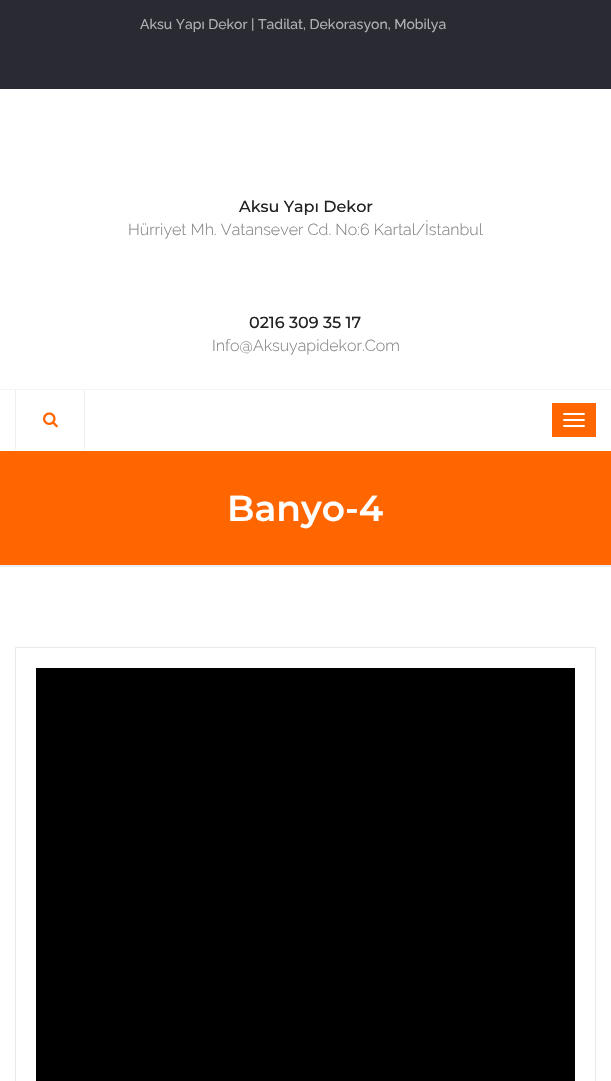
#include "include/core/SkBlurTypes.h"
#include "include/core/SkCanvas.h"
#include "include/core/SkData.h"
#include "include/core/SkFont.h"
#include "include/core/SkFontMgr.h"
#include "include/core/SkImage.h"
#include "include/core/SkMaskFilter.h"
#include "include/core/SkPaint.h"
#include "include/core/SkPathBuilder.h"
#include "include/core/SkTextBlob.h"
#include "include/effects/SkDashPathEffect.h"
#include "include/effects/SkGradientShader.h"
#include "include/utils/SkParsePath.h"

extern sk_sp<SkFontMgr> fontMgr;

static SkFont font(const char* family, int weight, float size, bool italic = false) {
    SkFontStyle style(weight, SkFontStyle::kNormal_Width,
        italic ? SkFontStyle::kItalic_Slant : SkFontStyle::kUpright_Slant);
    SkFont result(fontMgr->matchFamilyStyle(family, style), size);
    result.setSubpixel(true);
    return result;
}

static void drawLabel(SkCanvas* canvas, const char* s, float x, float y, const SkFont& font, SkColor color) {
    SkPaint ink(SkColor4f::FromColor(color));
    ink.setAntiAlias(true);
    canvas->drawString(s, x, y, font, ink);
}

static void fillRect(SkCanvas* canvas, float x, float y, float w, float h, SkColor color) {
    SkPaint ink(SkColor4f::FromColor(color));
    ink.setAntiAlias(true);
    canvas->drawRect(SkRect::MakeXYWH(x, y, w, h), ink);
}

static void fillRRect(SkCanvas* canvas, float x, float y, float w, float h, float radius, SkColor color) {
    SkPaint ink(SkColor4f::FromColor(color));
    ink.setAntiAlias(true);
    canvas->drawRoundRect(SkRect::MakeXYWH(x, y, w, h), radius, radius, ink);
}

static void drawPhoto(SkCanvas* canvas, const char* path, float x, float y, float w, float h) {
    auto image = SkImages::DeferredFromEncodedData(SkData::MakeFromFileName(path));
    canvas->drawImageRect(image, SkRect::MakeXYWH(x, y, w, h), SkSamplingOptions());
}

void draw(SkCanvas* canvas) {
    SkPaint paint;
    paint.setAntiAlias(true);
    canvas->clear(0xFFFFFFFF);
    fillRect(canvas, 0, 0, 611, 89, 0xFF2A2A33);
    SkFont font1 = font("Raleway", 500, 14);
    drawLabel(canvas, "Aksu Yapı Dekor | Tadilat, Dekorasyon, Mobilya", 140, 29, font1, 0xFFAFAFB5);
    fillRect(canvas, 0, 389, 611, 1, 0xFFF3F3F3);
    SkFont font2 = font("Montserrat", 500, 16);
    drawLabel(canvas, "Aksu Yapı Dekor", 239, 212, font2, 0xFF222222);
    SkFont font3 = font("Raleway", 300, 16);
    drawLabel(canvas, "Hürriyet Mh. Vatansever Cd. No:6 Kartal/İstanbul", 128, 235, font3, 0xFF848484);
    drawLabel(canvas, "0216 309 35 17", 249, 328, font2, 0xFF222222);
    drawLabel(canvas, "Info@Aksuyapidekor.Com", 212, 351, font3, 0xFF848484);
    fillRect(canvas, 84, 390, 1, 59, 0xFFEEEEEE);
    fillRect(canvas, 15, 390, 1, 59, 0xFFEEEEEE);
    drawPhoto(canvas, "assets/img1.png", 43, 412, 15, 16);
    fillRect(canvas, 552, 403, 44, 34, 0xFFFF6600);
    fillRRect(canvas, 563, 413, 22, 2, 1, 0xFFFFFFFF);
    fillRRect(canvas, 563, 419, 22, 2, 1, 0xFFFFFFFF);
    fillRRect(canvas, 563, 425, 22, 2, 1, 0xFFFFFFFF);
    fillRect(canvas, 0, 451, 611, 114, 0xFFFF6600);
    SkFont font4 = font("Montserrat", 600, 36);
    drawLabel(canvas, "Banyo-4", 227, 521, font4, 0xFFFFFFFF);
    fillRect(canvas, 0, 565, 611, 2, 0xFFEEEEEE);
    paint.setStroke(true);
    paint.setStrokeWidth(1);
    paint.setColor(0xFFEAEAEA);
    canvas->drawRect(SkRect::MakeXYWH(15.5f, 647.5f, 580, 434), paint);
    fillRect(canvas, 36, 668, 539, 413, 0xFF000000);
}
